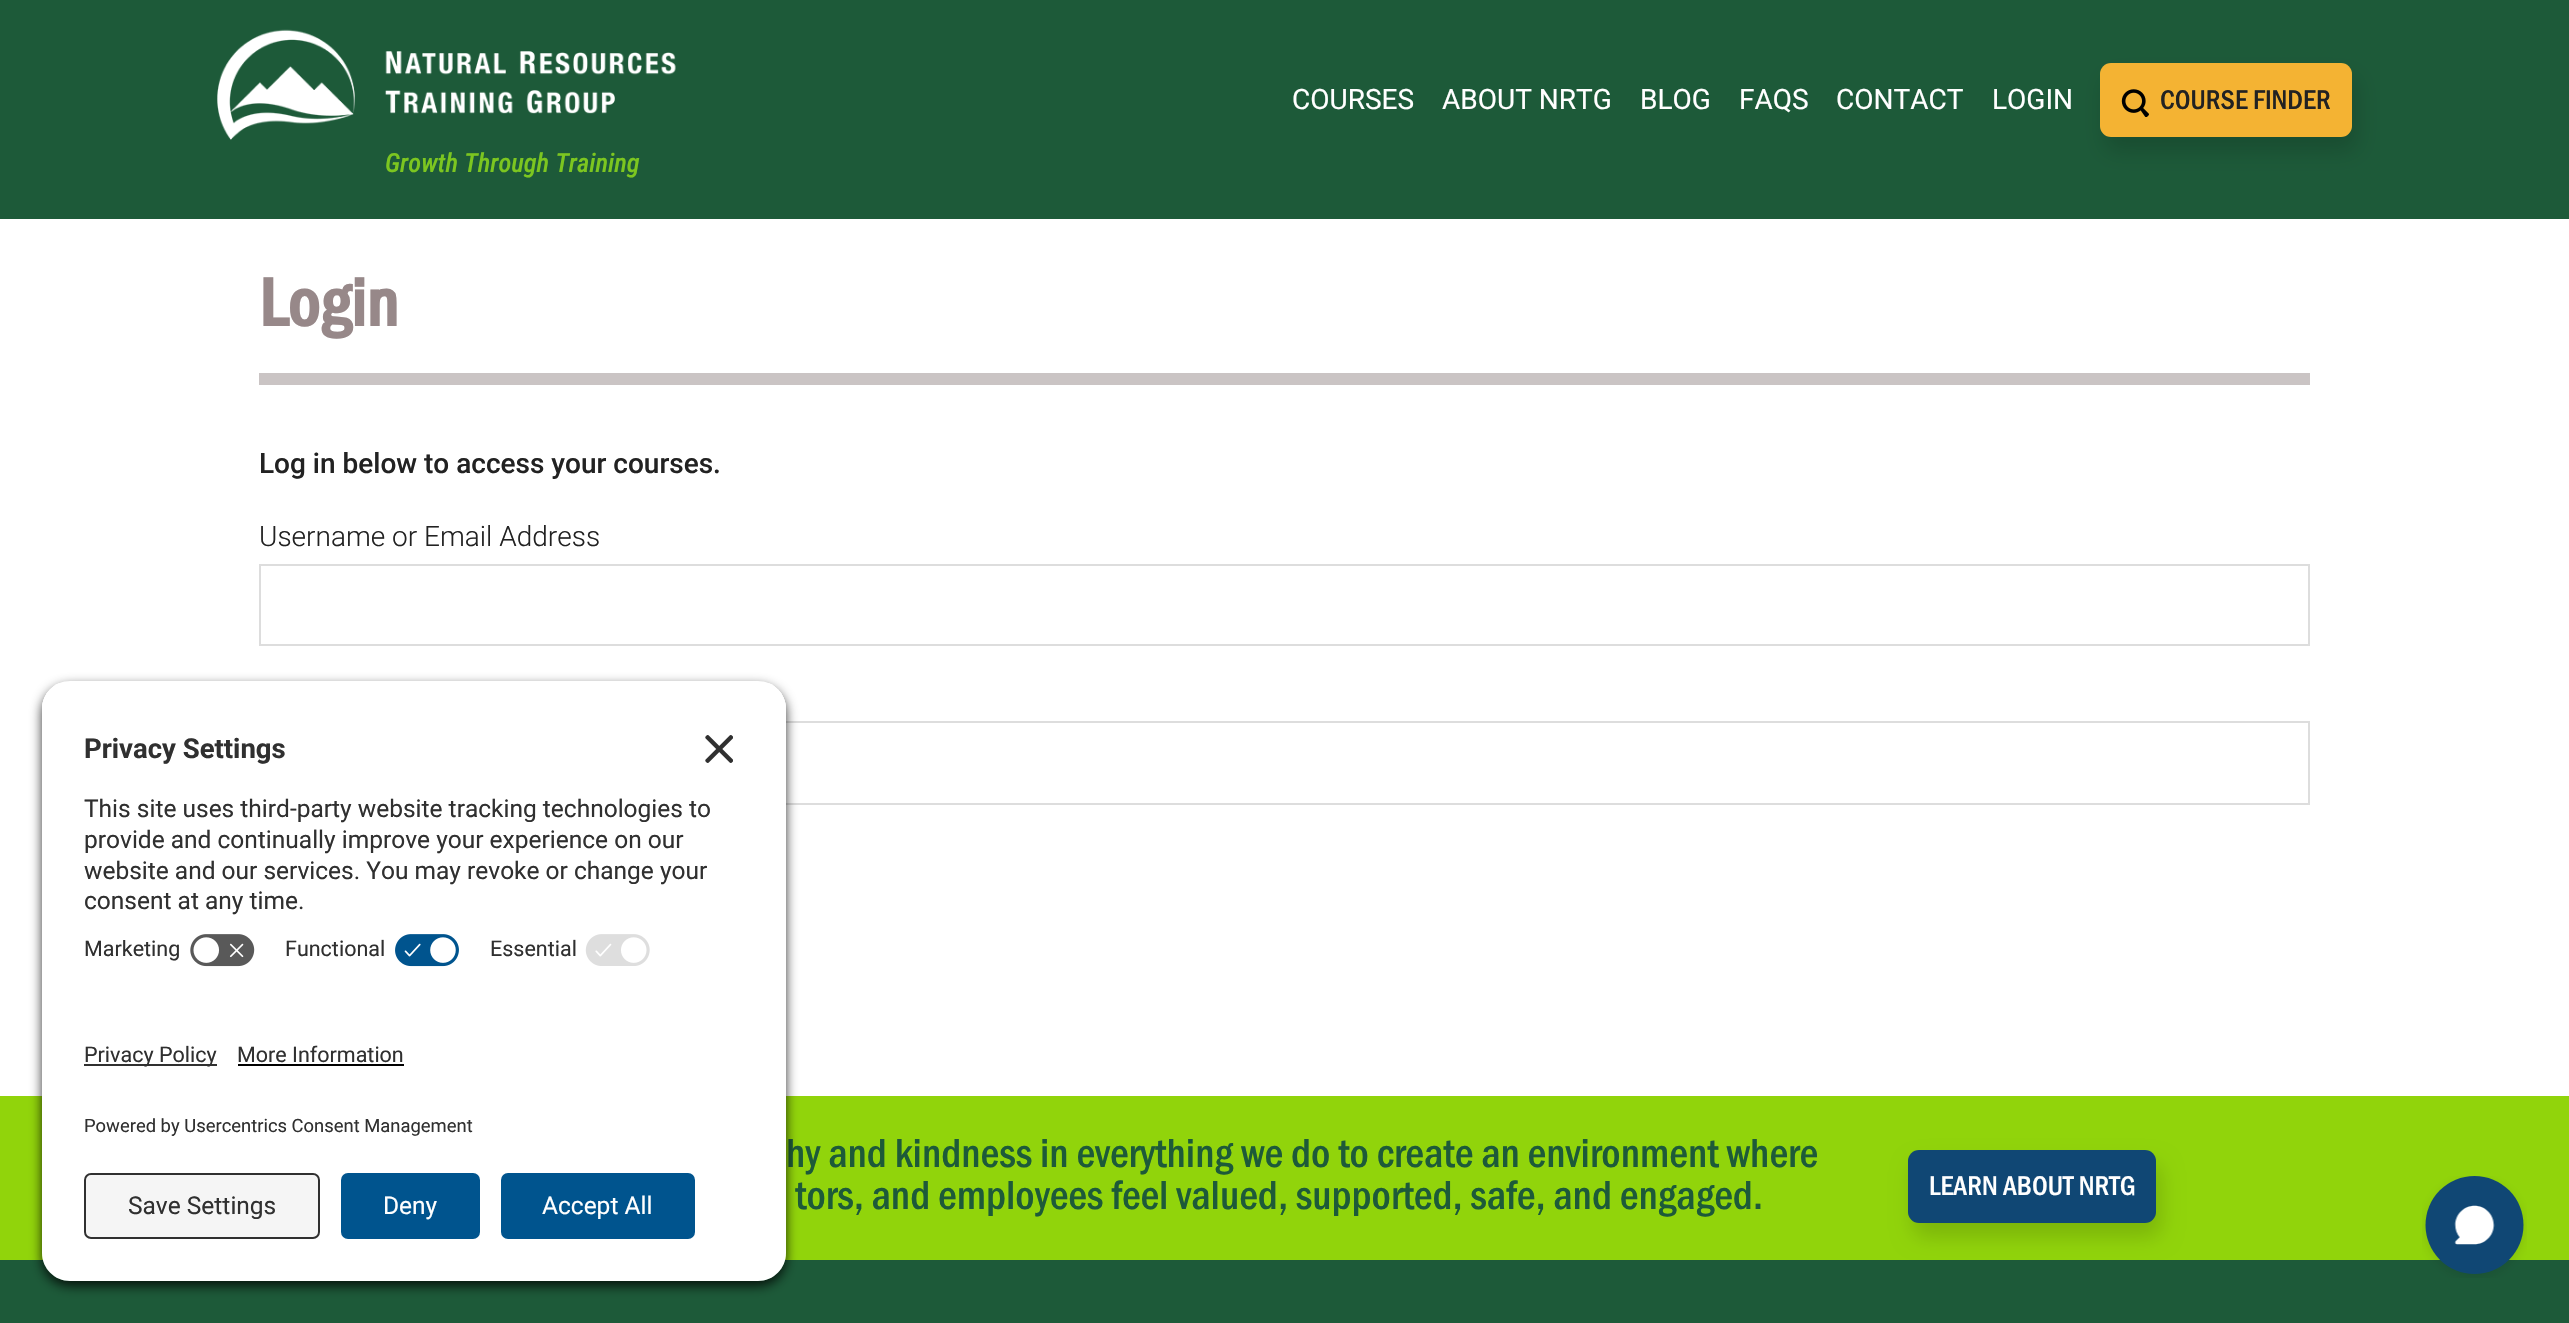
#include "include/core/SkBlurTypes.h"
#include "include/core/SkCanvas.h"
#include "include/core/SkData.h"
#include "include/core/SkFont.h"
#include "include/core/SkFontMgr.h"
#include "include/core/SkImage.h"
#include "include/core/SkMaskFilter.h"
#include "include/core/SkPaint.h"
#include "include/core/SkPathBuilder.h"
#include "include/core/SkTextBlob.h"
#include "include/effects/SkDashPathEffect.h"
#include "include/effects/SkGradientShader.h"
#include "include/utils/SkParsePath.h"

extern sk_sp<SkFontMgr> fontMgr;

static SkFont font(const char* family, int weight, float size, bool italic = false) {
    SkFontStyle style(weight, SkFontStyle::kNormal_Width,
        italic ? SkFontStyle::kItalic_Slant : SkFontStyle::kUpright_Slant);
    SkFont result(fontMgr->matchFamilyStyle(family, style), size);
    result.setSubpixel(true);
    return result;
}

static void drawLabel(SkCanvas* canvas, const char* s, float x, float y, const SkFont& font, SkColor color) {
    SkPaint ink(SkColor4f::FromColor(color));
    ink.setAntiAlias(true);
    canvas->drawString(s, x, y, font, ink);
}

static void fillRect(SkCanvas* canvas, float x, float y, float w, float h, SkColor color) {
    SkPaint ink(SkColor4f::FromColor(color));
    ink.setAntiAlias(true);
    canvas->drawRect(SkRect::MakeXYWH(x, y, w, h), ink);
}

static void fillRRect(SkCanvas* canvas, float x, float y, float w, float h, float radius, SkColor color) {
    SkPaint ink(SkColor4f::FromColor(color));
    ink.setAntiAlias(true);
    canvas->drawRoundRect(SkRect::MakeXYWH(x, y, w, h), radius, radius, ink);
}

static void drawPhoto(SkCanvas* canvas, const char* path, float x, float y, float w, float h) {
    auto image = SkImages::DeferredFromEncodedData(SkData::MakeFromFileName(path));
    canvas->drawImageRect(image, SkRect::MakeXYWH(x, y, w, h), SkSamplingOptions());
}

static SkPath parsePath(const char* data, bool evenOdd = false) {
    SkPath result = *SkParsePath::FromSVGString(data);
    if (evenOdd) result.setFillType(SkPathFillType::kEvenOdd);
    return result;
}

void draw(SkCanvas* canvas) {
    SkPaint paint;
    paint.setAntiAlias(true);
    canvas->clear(0xFFFFFFFF);
    fillRect(canvas, 0, 0, 2569, 219, 0xFF1D5A39);
    SkFont font1 = font("Roboto", 400, 28);
    drawLabel(canvas, "COURSES", 1292, 109, font1, 0xFFFFFFFF);
    drawLabel(canvas, "ABOUT NRTG", 1442, 109, font1, 0xFFFFFFFF);
    drawLabel(canvas, "BLOG", 1640, 109, font1, 0xFFFFFFFF);
    drawLabel(canvas, "FAQS", 1739, 109, font1, 0xFFFFFFFF);
    drawLabel(canvas, "CONTACT", 1836, 109, font1, 0xFFFFFFFF);
    drawLabel(canvas, "LOGIN", 1992, 109, font1, 0xFFFFFFFF);
    paint.setColor(0x26000000);
    paint.setMaskFilter(SkMaskFilter::MakeBlur(kNormal_SkBlurStyle, 10.5f));
    canvas->drawRoundRect(SkRect::MakeXYWH(2105, 77, 252, 74), 11, 11, paint);
    paint.setMaskFilter(nullptr);
    fillRRect(canvas, 2100, 63, 252, 74, 11, 0xFFF4B333);
    drawPhoto(canvas, "assets/img1.png", 2121, 89, 28, 28);
    SkFont font2 = font("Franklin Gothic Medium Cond", 500, 28);
    drawLabel(canvas, "COURSE FINDER", 2160, 109, font2, 0xFF222222);
    drawPhoto(canvas, "assets/img2.png", 217, 29, 459, 111);
    SkFont font3 = font("Roboto Condensed", 500, 26.5f, true);
    drawLabel(canvas, "Growth Through Training", 385, 172, font3, 0xFF7CC620);
    fillRect(canvas, 259, 373, 2051, 12, 0xFFCAC4C4);
    SkFont font4 = font("Franklin Gothic Medium Cond", 700, 70);
    drawLabel(canvas, "Login", 259, 326, font4, 0xFF978889);
    SkFont font5 = font("Roboto", 500, 28);
    drawLabel(canvas, "Log in below to access your courses.", 259, 473, font5, 0xFF222222);
    SkFont font6 = font("Roboto", 300, 28);
    drawLabel(canvas, "Username or Email Address", 259, 546, font6, 0xFF222222);
    paint.setStroke(true);
    paint.setStrokeWidth(2);
    paint.setColor(0xFFDDDDDD);
    canvas->drawRect(SkRect::MakeXYWH(260, 565, 2049, 80), paint);
    canvas->drawRect(SkRect::MakeXYWH(260, 722, 2049, 82), paint);
    fillRect(canvas, 0, 1096, 2569, 164, 0xFF91D40B);
    SkFont font7 = font("Franklin Gothic Medium Cond", 500, 42);
    drawLabel(canvas, "hy and kindness in everything we do to create an environment where", 786, 1167, font7, 0xFF1D5A39);
    drawLabel(canvas, "tors, and employees feel valued, supported, safe, and engaged.", 795, 1209, font7, 0xFF1D5A39);
    fillRect(canvas, 0, 1260, 2569, 63, 0xFF1D5A39);
    paint.setStroke(false);
    paint.setColor(0x26000000);
    paint.setMaskFilter(SkMaskFilter::MakeBlur(kNormal_SkBlurStyle, 10.5f));
    canvas->drawRoundRect(SkRect::MakeXYWH(1913, 1164, 248, 73), 11, 11, paint);
    paint.setMaskFilter(nullptr);
    fillRRect(canvas, 1908, 1150, 248, 73, 11, 0xFF104774);
    drawLabel(canvas, "LEARN ABOUT NRTG", 1929, 1195, font2, 0xFFFFFFFF);
    canvas->save();
    canvas->clipPath(parsePath("M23 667H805V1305H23ZM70 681H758C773.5 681 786 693.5 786 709V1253C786 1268.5 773.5 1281 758 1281H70C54.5 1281 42 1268.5 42 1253V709C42 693.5 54.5 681 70 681Z", true), true);
    paint.setColor(0xCC000000);
    paint.setMaskFilter(SkMaskFilter::MakeBlur(kNormal_SkBlurStyle, 6));
    canvas->drawRoundRect(SkRect::MakeXYWH(42, 686, 744, 600), 28, 28, paint);
    paint.setMaskFilter(nullptr);
    canvas->restore();
    canvas->save();
    canvas->clipPath(parsePath("M70 681H758C773.5 681 786 693.5 786 709V994H42V709C42 693.5 54.5 681 70 681Z"), true);
    fillRect(canvas, 42, 683, 744, 311, 0xFFFFFFFF);
    fillRect(canvas, 42, 683, 744, 241, 0xFFFFFFFF);
    canvas->restore();
    SkFont font8 = font("Roboto", 700, 27.5f);
    drawLabel(canvas, "Privacy Settings", 84, 758, font8, 0xFF303030);
    drawPhoto(canvas, "assets/img3.png", 705, 735, 28, 28);
    SkFont font9 = font("Roboto", 400, 24.5f);
    drawLabel(canvas, "This site uses third-party website tracking technologies to", 84, 817, font9, 0xFF303030);
    drawLabel(canvas, "provide and continually improve your experience on our", 84, 848, font9, 0xFF303030);
    drawLabel(canvas, "website and our services. You may revoke or change your", 84, 879, font9, 0xFF303030);
    drawLabel(canvas, "consent at any time.", 84, 909, font9, 0xFF303030);
    SkFont font10 = font("Roboto", 400, 21.5f);
    drawLabel(canvas, "Marketing", 84, 956, font10, 0xFF303030);
    drawPhoto(canvas, "assets/img4.png", 190, 934, 65, 33);
    drawLabel(canvas, "Functional", 285, 956, font10, 0xFF303030);
    drawPhoto(canvas, "assets/img5.png", 395, 934, 64, 33);
    drawLabel(canvas, "Essential", 490, 956, font10, 0xFF303030);
    drawPhoto(canvas, "assets/img6.png", 585, 934, 65, 32);
    paint.setColor(0xFFFFFFFF);
    canvas->drawPath(parsePath("M42 994H786V1253C786 1268.5 773.5 1281 758 1281H70C54.5 1281 42 1268.5 42 1253Z"), paint);
    fillRect(canvas, 84, 1064, 133, 2, 0xFF303030);
    drawLabel(canvas, "Privacy Policy", 84, 1062, font10, 0xFF303030);
    drawLabel(canvas, "More Information", 237, 1062, font10, 0xFF303030);
    fillRect(canvas, 238, 1064, 166, 2, 0xFF000000);
    SkFont font11 = font("Roboto", 400, 18.4f);
    drawLabel(canvas, "Powered by Usercentrics Consent Management", 84, 1132, font11, 0xFF303030);
    paint.setColor(0xFFF5F5F5);
    canvas->drawRoundRect(SkRect::MakeXYWH(85, 1174, 234, 64), 6, 6, paint);
    paint.setStroke(true);
    paint.setColor(0xFF303030);
    canvas->drawRoundRect(SkRect::MakeXYWH(85, 1174, 234, 64), 6, 6, paint);
    drawLabel(canvas, "Save Settings", 128, 1214, font9, 0xFF303030);
    fillRRect(canvas, 341, 1173, 139, 66, 7, 0xFF00548E);
    drawLabel(canvas, "Deny", 383, 1214, font9, 0xFFFFFFFF);
    fillRRect(canvas, 501, 1173, 194, 66, 7, 0xFF00548E);
    drawLabel(canvas, "Accept All", 542, 1214, font9, 0xFFFFFFFF);
    drawPhoto(canvas, "assets/img7.png", 2422, 1176, 105, 102);
}
